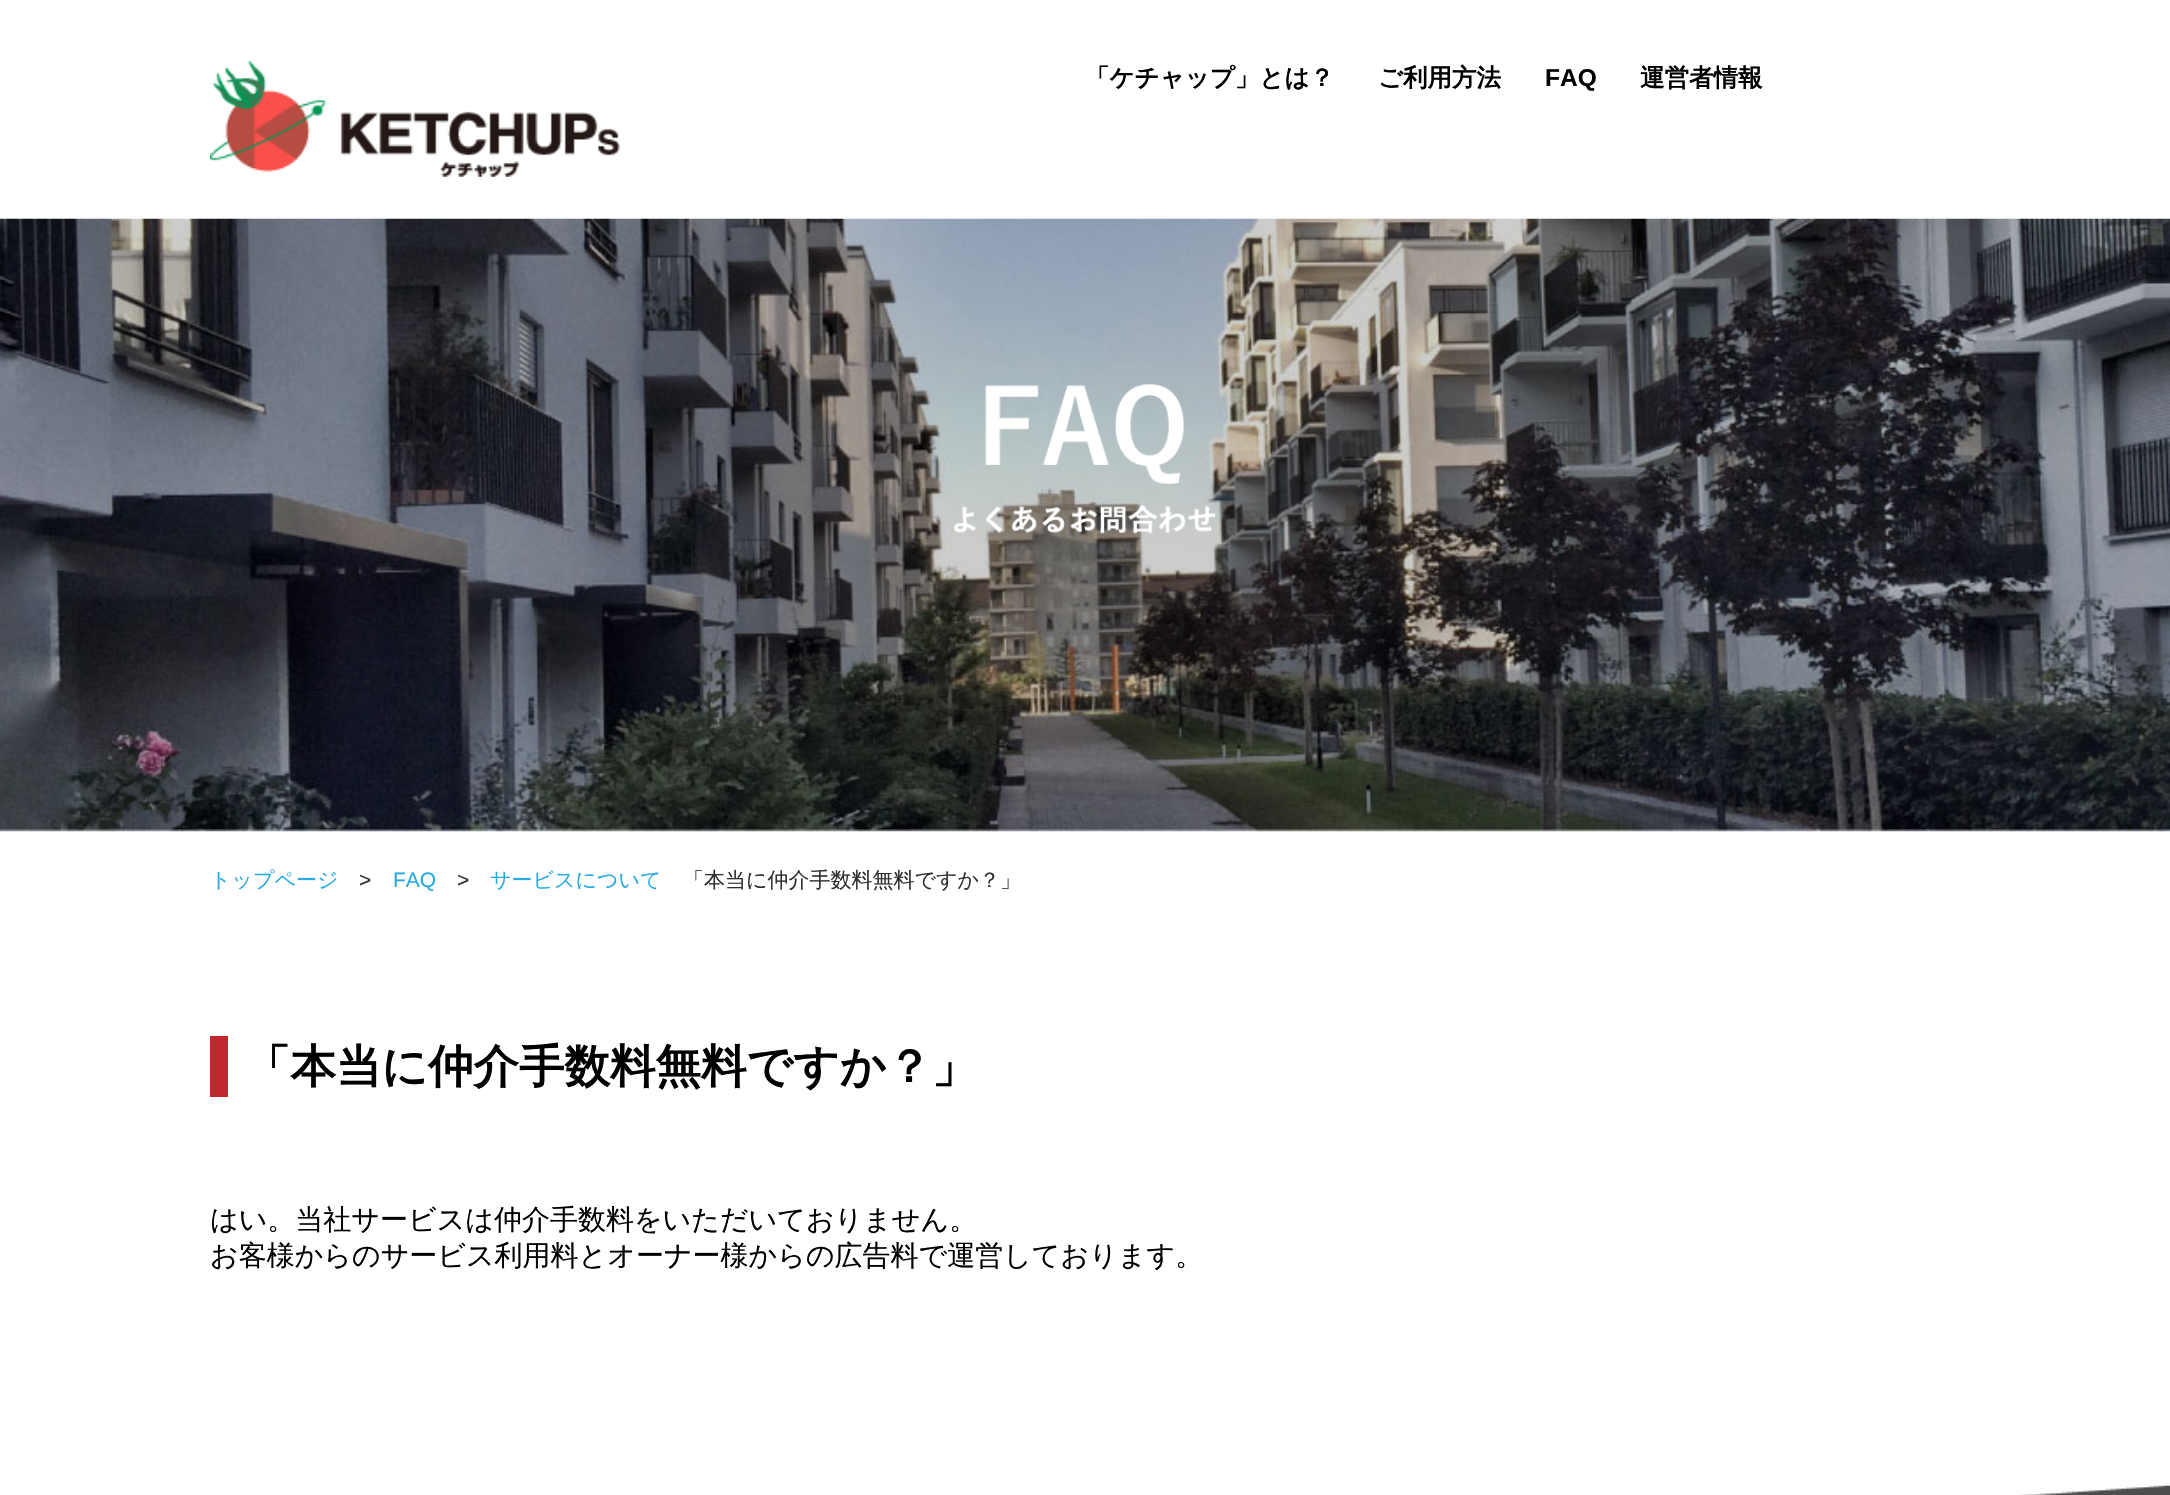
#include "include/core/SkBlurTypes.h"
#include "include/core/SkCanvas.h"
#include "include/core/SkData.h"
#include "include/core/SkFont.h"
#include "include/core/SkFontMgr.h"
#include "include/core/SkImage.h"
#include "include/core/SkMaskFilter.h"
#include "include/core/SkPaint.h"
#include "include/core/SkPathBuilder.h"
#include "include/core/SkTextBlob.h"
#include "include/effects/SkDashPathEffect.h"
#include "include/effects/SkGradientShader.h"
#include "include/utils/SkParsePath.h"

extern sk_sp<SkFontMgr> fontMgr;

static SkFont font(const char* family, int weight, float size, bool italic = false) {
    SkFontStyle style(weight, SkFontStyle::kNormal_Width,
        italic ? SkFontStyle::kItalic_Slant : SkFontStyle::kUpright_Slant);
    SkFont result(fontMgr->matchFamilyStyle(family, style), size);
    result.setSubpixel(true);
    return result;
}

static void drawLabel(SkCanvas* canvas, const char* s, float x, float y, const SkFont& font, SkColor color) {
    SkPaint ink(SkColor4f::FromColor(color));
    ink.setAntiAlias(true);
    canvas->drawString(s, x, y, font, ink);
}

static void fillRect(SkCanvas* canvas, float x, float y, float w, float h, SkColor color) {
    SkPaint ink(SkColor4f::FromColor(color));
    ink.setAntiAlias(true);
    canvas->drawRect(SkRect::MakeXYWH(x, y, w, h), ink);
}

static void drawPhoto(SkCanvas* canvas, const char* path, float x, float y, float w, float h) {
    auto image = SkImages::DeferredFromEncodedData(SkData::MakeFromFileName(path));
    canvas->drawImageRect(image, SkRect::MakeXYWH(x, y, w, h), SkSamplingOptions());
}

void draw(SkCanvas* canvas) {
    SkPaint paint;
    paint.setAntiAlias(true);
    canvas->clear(0xFFFFFFFF);
    drawPhoto(canvas, "assets/img1.png", 210, 61, 410, 116);
    SkFont font1 = font("WenQuanYi Zen Hei", 700, 24.5f);
    drawLabel(canvas, "「ケチャップ」とは？", 1085, 86, font1, 0xFF000000);
    drawLabel(canvas, "ご利用方法", 1378, 86, font1, 0xFF000000);
    SkFont font2 = font("Liberation Sans", 700, 24.5f);
    drawLabel(canvas, "FAQ", 1545, 86, font2, 0xFF000000);
    drawLabel(canvas, "運営者情報", 1640, 86, font1, 0xFF000000);
    drawPhoto(canvas, "assets/img2.png", 0, 218, 2170, 614);
    drawPhoto(canvas, "assets/img3.png", 953, 384, 263, 150);
    SkFont font3 = font("WenQuanYi Zen Hei", 500, 21);
    drawLabel(canvas, "トップページ", 210, 887, font3, 0xFF29ABE2);
    SkFont font4 = font("Liberation Sans", 400, 21);
    drawLabel(canvas, ">", 359, 887, font4, 0xFF2F2F2F);
    drawLabel(canvas, "FAQ", 393, 887, font4, 0xFF29ABE2);
    drawLabel(canvas, ">", 457, 887, font4, 0xFF2F2F2F);
    drawLabel(canvas, "サービスについて", 490, 887, font3, 0xFF29ABE2);
    drawLabel(canvas, "「本当に仲介手数料無料ですか？」", 683, 887, font3, 0xFF2F2F2F);
    fillRect(canvas, 210, 1036, 18, 61, 0xFFC1272D);
    SkFont font5 = font("WenQuanYi Zen Hei", 700, 45.5f);
    drawLabel(canvas, "「本当に仲介手数料無料ですか？」", 245, 1082, font5, 0xFF000000);
    SkFont font6 = font("WenQuanYi Zen Hei", 500, 28);
    drawLabel(canvas, "はい。当社サービスは仲介手数料をいただいておりません。", 210, 1229, font6, 0xFF000000);
    drawLabel(canvas, "お客様からのサービス利用料とオーナー様からの広告料で運営しております。", 210, 1265, font6, 0xFF000000);
    drawPhoto(canvas, "assets/img4.png", 2018, 1485, 152, 10);
}
